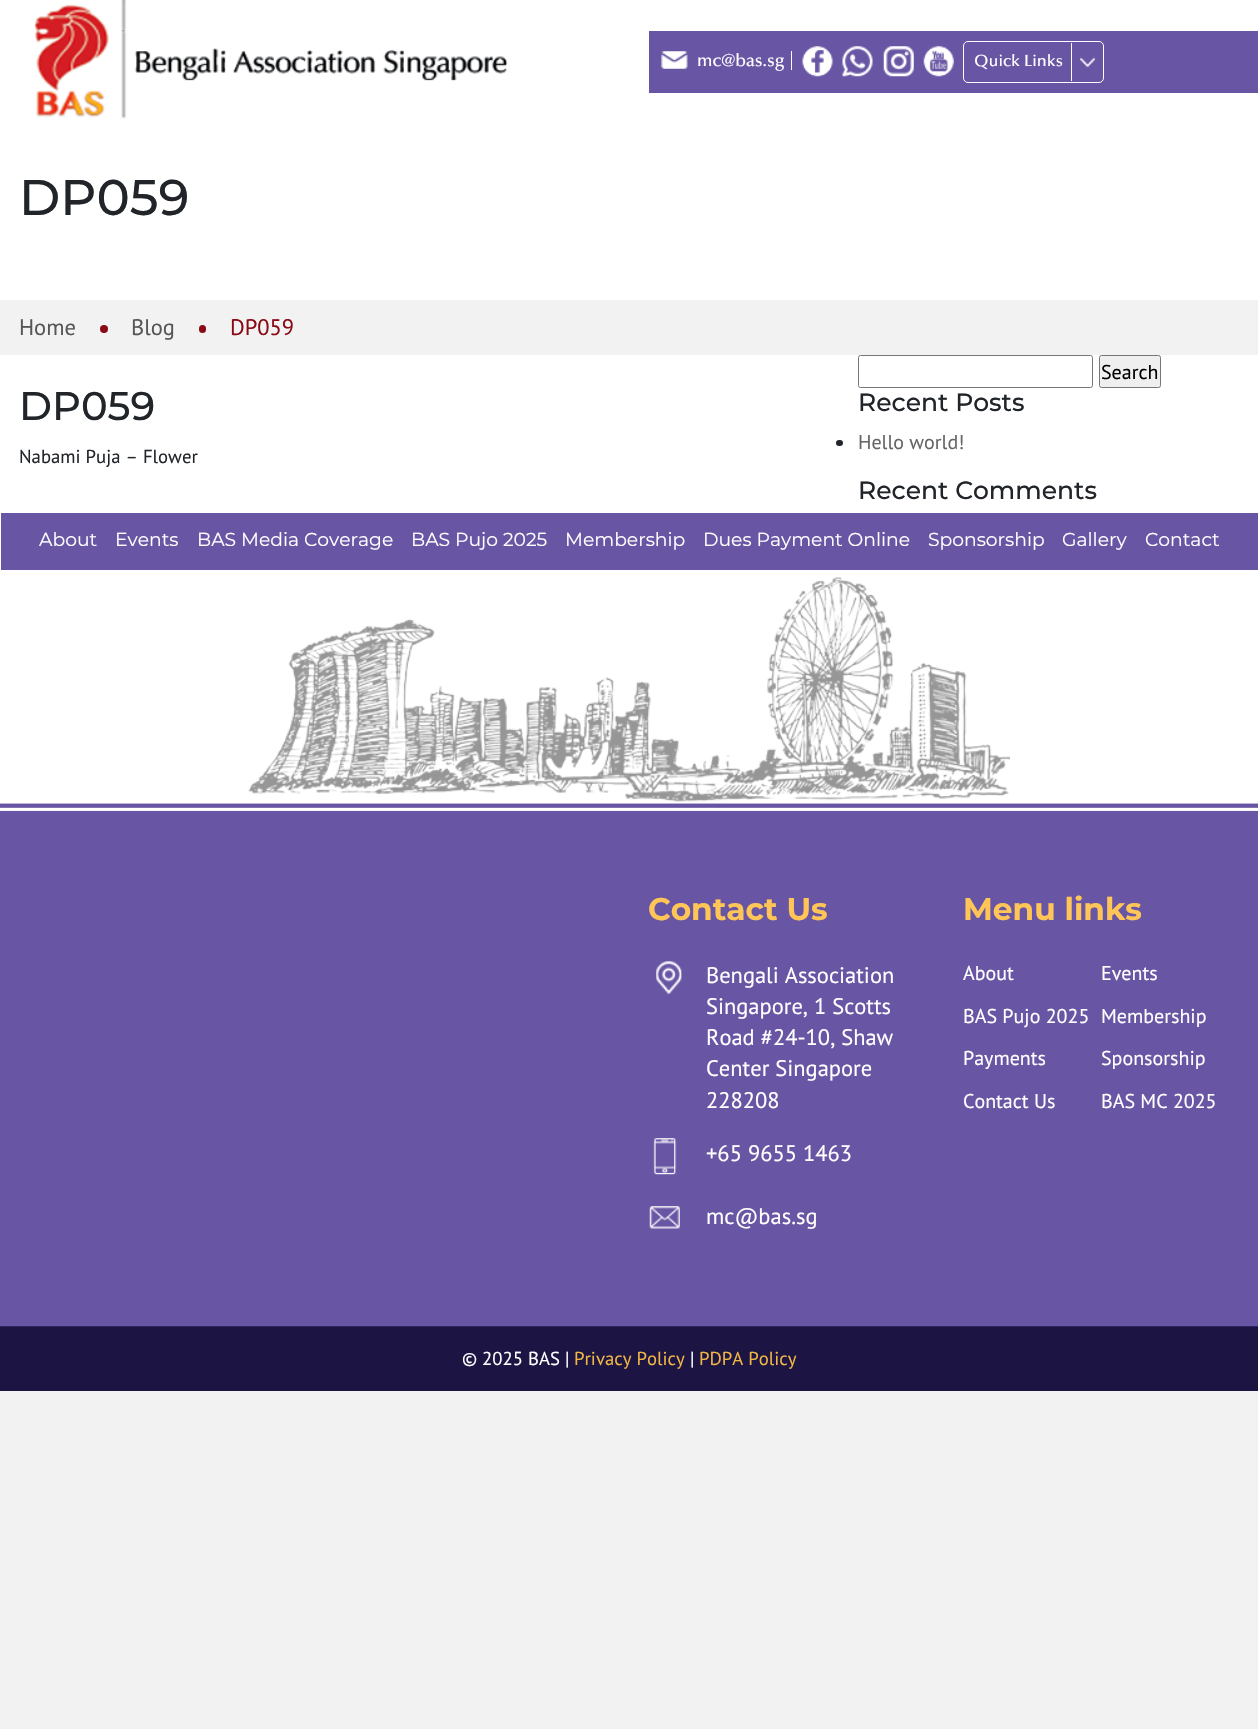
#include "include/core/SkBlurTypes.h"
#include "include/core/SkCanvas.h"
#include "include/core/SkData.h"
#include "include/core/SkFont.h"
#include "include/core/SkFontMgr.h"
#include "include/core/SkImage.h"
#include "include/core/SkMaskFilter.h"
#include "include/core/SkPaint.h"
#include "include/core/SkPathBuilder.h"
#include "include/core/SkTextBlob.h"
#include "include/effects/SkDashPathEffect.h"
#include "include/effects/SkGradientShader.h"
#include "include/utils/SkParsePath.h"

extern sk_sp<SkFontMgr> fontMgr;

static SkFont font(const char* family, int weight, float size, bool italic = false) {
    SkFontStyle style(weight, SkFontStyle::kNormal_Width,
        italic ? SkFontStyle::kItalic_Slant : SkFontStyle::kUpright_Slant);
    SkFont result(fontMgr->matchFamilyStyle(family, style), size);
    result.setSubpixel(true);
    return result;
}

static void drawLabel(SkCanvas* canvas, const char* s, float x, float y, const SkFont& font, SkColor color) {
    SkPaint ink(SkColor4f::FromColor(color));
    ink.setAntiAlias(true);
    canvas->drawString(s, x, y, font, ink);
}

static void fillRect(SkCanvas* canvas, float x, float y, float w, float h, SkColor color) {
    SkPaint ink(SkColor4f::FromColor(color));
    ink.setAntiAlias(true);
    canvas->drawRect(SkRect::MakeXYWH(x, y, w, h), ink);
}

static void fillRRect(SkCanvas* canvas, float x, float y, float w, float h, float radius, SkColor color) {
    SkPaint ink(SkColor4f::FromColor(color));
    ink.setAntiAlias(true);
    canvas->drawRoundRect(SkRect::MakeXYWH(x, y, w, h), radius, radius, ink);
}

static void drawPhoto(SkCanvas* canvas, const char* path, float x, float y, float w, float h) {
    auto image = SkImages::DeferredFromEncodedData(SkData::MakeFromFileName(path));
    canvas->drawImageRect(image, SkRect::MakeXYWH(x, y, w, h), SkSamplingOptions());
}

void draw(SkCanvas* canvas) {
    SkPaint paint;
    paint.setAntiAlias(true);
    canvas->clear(0xFFF2F2F2);
    fillRect(canvas, 0, 0, 1258, 803, 0xFFFFFFFF);
    drawPhoto(canvas, "assets/img1.png", 34, 0, 474, 119);
    fillRect(canvas, 649, 31, 609, 62, 0xFF6855A4);
    drawPhoto(canvas, "assets/img2.png", 661, 51, 27, 18);
    SkFont font1 = font("Optima", 500, 17.5f);
    drawLabel(canvas, "mc@bas.sg", 697, 66, font1, 0xFFFFFFFF);
    fillRect(canvas, 791, 51, 1, 19, 0xFFFFFFFF);
    drawPhoto(canvas, "assets/img3.png", 802, 46, 31, 31);
    drawPhoto(canvas, "assets/img4.png", 842, 46, 31, 31);
    drawPhoto(canvas, "assets/img5.png", 883, 46, 31, 31);
    drawPhoto(canvas, "assets/img6.png", 923, 46, 31, 31);
    drawPhoto(canvas, "assets/img7.png", 1080, 57, 15, 11);
    paint.setStroke(true);
    paint.setStrokeWidth(1);
    paint.setColor(0xFFFFFFFF);
    canvas->drawRoundRect(SkRect::MakeXYWH(963.5f, 41.5f, 140, 41), 4.5f, 4.5f, paint);
    SkFont font2 = font("Optima", 500, 16.25f);
    drawLabel(canvas, "Quick Links", 974, 66, font2, 0xFFFFFFFF);
    fillRect(canvas, 1071, 43, 1, 38, 0xFFFFFFFF);
    fillRect(canvas, 1, 513, 1257, 57, 0xFF6855A4);
    SkFont font3 = font("Montserrat", 400, 18.75f);
    drawLabel(canvas, "About", 39, 546, font3, 0xFFFFFFFF);
    drawLabel(canvas, "Events", 115, 546, font3, 0xFFFFFFFF);
    drawLabel(canvas, "BAS Media Coverage", 197, 546, font3, 0xFFFFFFFF);
    drawLabel(canvas, "BAS Pujo 2025", 411, 546, font3, 0xFFFFFFFF);
    drawLabel(canvas, "Membership", 565, 546, font3, 0xFFFFFFFF);
    drawLabel(canvas, "Dues Payment Online", 703, 546, font3, 0xFFFFFFFF);
    drawLabel(canvas, "Sponsorship", 928, 546, font3, 0xFFFFFFFF);
    drawLabel(canvas, "Gallery", 1062, 546, font3, 0xFFFFFFFF);
    drawLabel(canvas, "Contact", 1145, 546, font3, 0xFFFFFFFF);
    SkFont font4 = font("Montserrat", 500, 50);
    drawLabel(canvas, "DP059", 19, 215, font4, 0xFF212529);
    fillRect(canvas, 0, 300, 1258, 55, 0xFFF2F2F2);
    SkFont font5 = font("PT Sans", 400, 22.5f);
    drawLabel(canvas, "Home", 19, 335, font5, 0xFF565656);
    paint.setStroke(false);
    paint.setColor(0xFF8A0B16);
    canvas->drawCircle(104, 329, 4, paint);
    drawLabel(canvas, "Blog", 131, 335, font5, 0xFF565656);
    fillRRect(canvas, 199, 325, 7, 8, 3.5f, 0xFF8A0B16);
    drawLabel(canvas, "DP059", 230, 335, font5, 0xFF8A0B16);
    SkFont font6 = font("Montserrat", 500, 40);
    drawLabel(canvas, "DP059", 19, 420, font6, 0xFF212529);
    SkFont font7 = font("PT Sans", 400, 18.75f);
    drawLabel(canvas, "Nabami Puja – Flower", 19, 463, font7, 0xFF212529);
    paint.setStroke(true);
    paint.setColor(0xFF767676);
    canvas->drawRoundRect(SkRect::MakeXYWH(858.5f, 355.5f, 234, 32), 2, 2, paint);
    paint.setStroke(false);
    paint.setColor(0xFFEFEFEF);
    canvas->drawRoundRect(SkRect::MakeXYWH(1099.5f, 355.5f, 61, 32), 2, 2, paint);
    paint.setStroke(true);
    paint.setColor(0xFF767676);
    canvas->drawRoundRect(SkRect::MakeXYWH(1099.5f, 355.5f, 61, 32), 2, 2, paint);
    SkFont font8 = font("PT Sans", 400, 20);
    drawLabel(canvas, "Search", 1101, 379, font8, 0xFF000000);
    SkFont font9 = font("Montserrat", 500, 25);
    drawLabel(canvas, "Recent Posts", 858, 411, font9, 0xFF212529);
    fillRRect(canvas, 836, 440, 7, 6, 3, 0xFF212529);
    drawLabel(canvas, "Hello world!", 858, 449, font8, 0xFF666666);
    drawLabel(canvas, "Recent Comments", 858, 499, font9, 0xFF212529);
    fillRect(canvas, 0, 1326, 1258, 65, 0xFF1C1442);
    drawPhoto(canvas, "assets/img8.png", 0, 803, 1258, 524);
    drawPhoto(canvas, "assets/img9.png", 248, 577, 762, 225);
    SkFont font10 = font("Montserrat", 700, 31.25f);
    drawLabel(canvas, "Contact Us", 648, 920, font10, 0xFFFFC557);
    drawPhoto(canvas, "assets/img10.png", 656, 961, 26, 33);
    drawLabel(canvas, "Bengali Association", 706, 983, font5, 0xFFFFFFFF);
    drawLabel(canvas, "Singapore, 1 Scotts", 706, 1014, font5, 0xFFFFFFFF);
    drawLabel(canvas, "Road #24-10, Shaw", 706, 1045, font5, 0xFFFFFFFF);
    drawLabel(canvas, "Center Singapore", 706, 1076, font5, 0xFFFFFFFF);
    drawLabel(canvas, "228208", 706, 1108, font5, 0xFFFFFFFF);
    drawPhoto(canvas, "assets/img11.png", 653, 1138, 24, 37);
    drawLabel(canvas, "+65 9655 1463", 706, 1161, font5, 0xFFFFFFFF);
    drawPhoto(canvas, "assets/img12.png", 649, 1206, 31, 23);
    drawLabel(canvas, "mc@bas.sg", 706, 1224, font5, 0xFFFFFFFF);
    drawLabel(canvas, "Menu links", 963, 920, font10, 0xFFFFC557);
    drawLabel(canvas, "About", 963, 980, font8, 0xFFFFFFFF);
    drawLabel(canvas, "Events", 1101, 980, font8, 0xFFFFFFFF);
    drawLabel(canvas, "BAS Pujo 2025", 963, 1023, font8, 0xFFFFFFFF);
    drawLabel(canvas, "Membership", 1101, 1023, font8, 0xFFFFFFFF);
    drawLabel(canvas, "Payments", 963, 1065, font8, 0xFFFFFFFF);
    drawLabel(canvas, "Sponsorship", 1101, 1065, font8, 0xFFFFFFFF);
    drawLabel(canvas, "Contact Us", 963, 1108, font8, 0xFFFFFFFF);
    drawLabel(canvas, "BAS MC 2025", 1101, 1108, font8, 0xFFFFFFFF);
    drawLabel(canvas, "© 2025 BAS |", 462, 1365, font7, 0xFFFFFFFF);
    drawLabel(canvas, "Privacy Policy", 574, 1365, font7, 0xFFF0B646);
    drawLabel(canvas, "|", 690, 1365, font7, 0xFFFFFFFF);
    drawLabel(canvas, "PDPA Policy", 699, 1365, font7, 0xFFF0B646);
}
